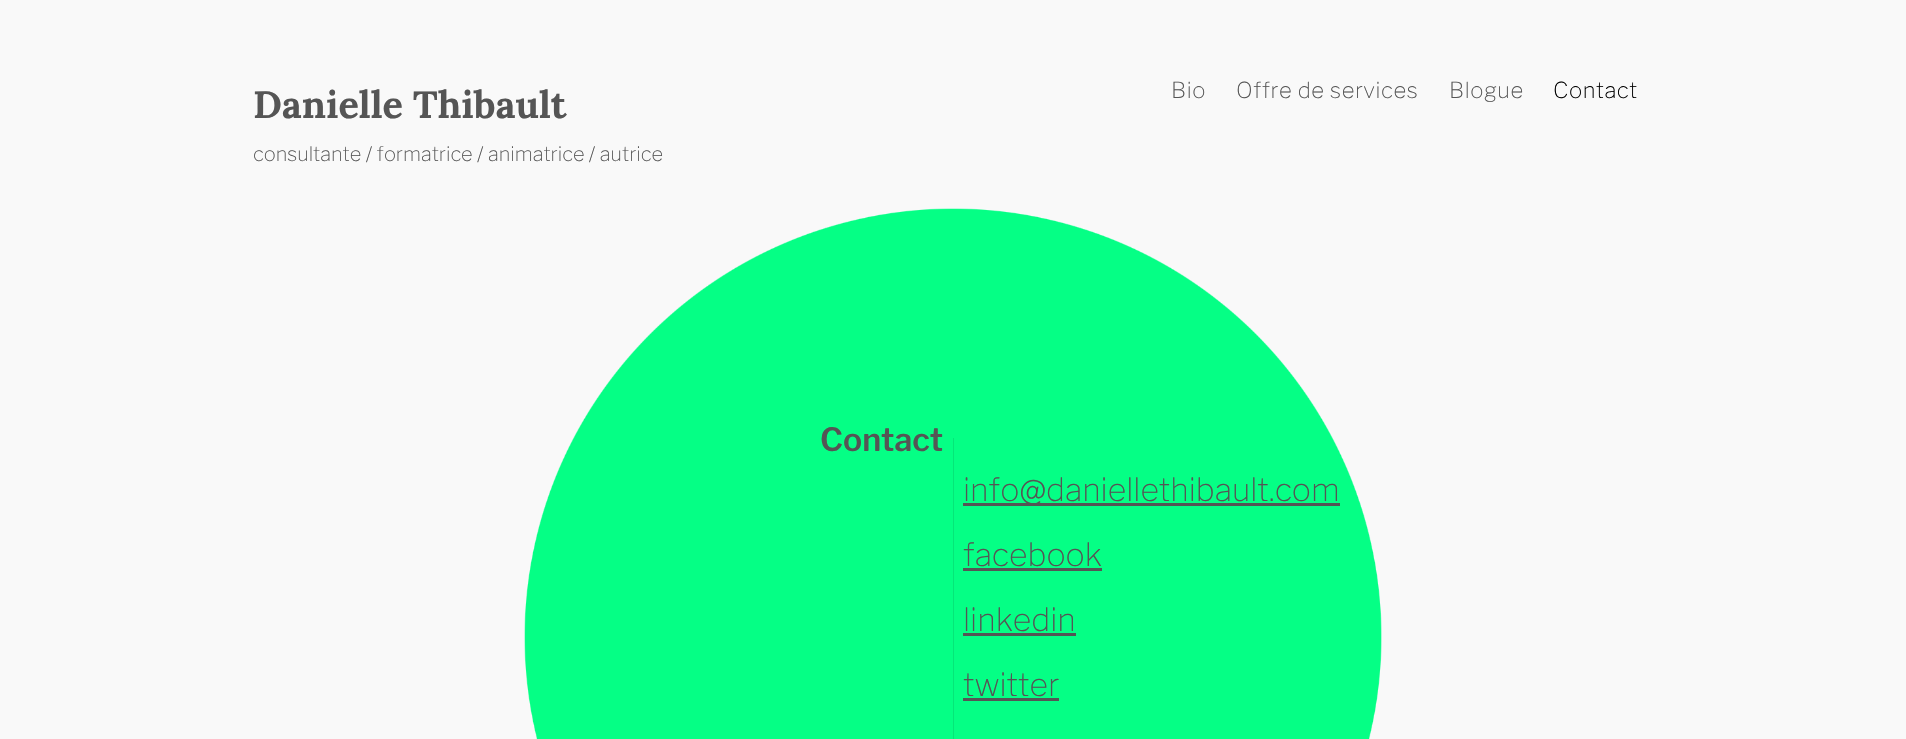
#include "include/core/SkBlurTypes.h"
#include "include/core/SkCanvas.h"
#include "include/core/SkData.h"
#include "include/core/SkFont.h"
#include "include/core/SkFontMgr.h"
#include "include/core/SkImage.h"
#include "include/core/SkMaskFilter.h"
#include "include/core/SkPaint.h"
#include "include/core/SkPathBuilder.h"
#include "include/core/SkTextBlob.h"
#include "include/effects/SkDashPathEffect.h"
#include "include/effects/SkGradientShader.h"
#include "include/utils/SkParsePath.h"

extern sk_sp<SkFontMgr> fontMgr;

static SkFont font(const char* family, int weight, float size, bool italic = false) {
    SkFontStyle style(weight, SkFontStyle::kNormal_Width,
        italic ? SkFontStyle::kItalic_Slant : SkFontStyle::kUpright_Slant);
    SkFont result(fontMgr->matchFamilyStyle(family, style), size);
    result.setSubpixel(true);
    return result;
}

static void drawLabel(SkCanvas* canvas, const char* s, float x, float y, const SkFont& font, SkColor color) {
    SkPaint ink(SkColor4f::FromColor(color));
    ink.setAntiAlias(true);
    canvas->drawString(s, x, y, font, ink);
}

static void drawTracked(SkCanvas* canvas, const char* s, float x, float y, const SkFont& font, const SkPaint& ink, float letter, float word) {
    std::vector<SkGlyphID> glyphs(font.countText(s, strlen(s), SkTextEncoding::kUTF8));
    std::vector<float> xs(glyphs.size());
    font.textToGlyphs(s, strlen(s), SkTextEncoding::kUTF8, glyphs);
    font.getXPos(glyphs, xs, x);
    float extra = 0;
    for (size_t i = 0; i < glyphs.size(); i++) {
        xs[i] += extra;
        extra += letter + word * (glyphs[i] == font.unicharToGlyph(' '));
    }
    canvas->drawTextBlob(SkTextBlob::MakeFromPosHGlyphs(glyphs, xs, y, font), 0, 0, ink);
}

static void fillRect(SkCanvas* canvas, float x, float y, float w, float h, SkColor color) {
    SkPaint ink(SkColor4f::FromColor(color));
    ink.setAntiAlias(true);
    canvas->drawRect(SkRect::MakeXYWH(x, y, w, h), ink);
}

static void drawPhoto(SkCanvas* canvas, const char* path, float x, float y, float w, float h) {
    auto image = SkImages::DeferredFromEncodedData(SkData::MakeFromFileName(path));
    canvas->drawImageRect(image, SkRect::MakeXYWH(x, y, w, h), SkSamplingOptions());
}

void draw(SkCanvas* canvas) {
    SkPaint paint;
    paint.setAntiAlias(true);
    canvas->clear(0xFFF9F9F9);
    SkFont font1 = font("Lora", 700, 38);
    drawLabel(canvas, "Danielle Thibault", 253, 118, font1, 0xFF555555);
    SkFont font2 = font("Libre Franklin", 100, 22);
    paint.setColor(0xFF555555);
    drawTracked(canvas, "Bio", 1171, 98, font2, paint, 0.6f, 0);
    drawTracked(canvas, "Offre de services", 1236, 98, font2, paint, 0.6f, 0);
    drawTracked(canvas, "Blogue", 1449, 98, font2, paint, 0.6f, 0);
    paint.setColor(0xFF000000);
    drawTracked(canvas, "Contact", 1553, 98, font2, paint, 0.6f, 0);
    SkFont font3 = font("Libre Franklin", 100, 20);
    drawLabel(canvas, "consultante / formatrice / animatrice / autrice", 253, 161, font3, 0xFF555555);
    drawPhoto(canvas, "assets/img1.png", 524, 208, 858, 531);
    SkFont font4 = font("Libre Franklin", 600, 32);
    drawLabel(canvas, "Contact", 820, 451, font4, 0xFF555555);
    fillRect(canvas, 963, 503, 377, 3, 0xFF555555);
    SkFont font5 = font("Libre Franklin", 100, 32);
    drawLabel(canvas, "info@daniellethibault.com", 963, 501, font5, 0xFF555555);
    drawLabel(canvas, "facebook", 963, 566, font5, 0xFF555555);
    fillRect(canvas, 963, 568, 139, 3, 0xFF555555);
    drawLabel(canvas, "linkedin", 963, 631, font5, 0xFF555555);
    fillRect(canvas, 963, 633, 113, 3, 0xFF555555);
    drawLabel(canvas, "twitter", 963, 696, font5, 0xFF555555);
    fillRect(canvas, 963, 698, 96, 3, 0xFF555555);
    fillRect(canvas, 953, 438, 1, 301, 0xFF05E678);
}
